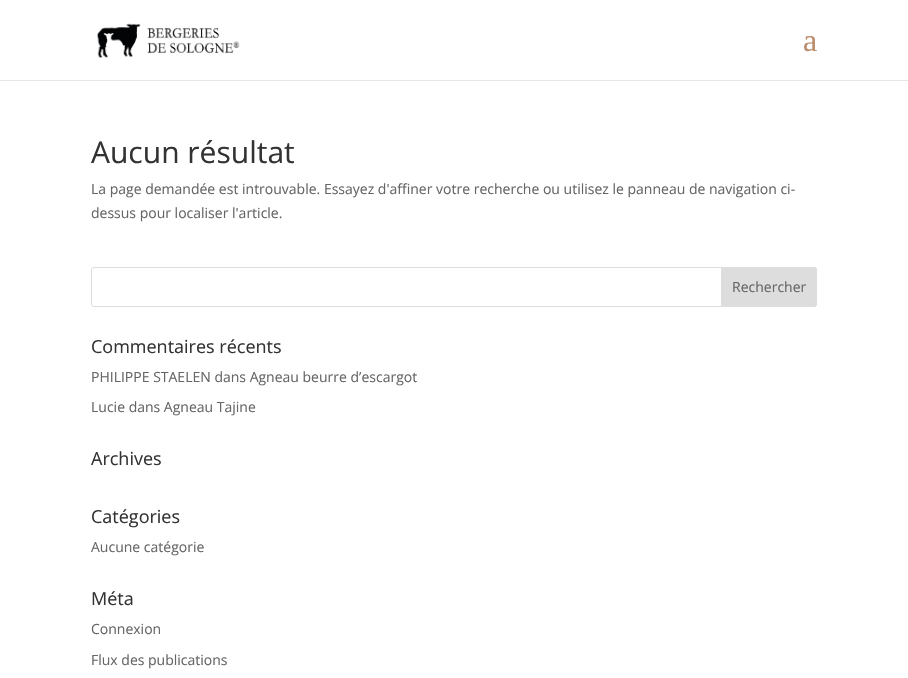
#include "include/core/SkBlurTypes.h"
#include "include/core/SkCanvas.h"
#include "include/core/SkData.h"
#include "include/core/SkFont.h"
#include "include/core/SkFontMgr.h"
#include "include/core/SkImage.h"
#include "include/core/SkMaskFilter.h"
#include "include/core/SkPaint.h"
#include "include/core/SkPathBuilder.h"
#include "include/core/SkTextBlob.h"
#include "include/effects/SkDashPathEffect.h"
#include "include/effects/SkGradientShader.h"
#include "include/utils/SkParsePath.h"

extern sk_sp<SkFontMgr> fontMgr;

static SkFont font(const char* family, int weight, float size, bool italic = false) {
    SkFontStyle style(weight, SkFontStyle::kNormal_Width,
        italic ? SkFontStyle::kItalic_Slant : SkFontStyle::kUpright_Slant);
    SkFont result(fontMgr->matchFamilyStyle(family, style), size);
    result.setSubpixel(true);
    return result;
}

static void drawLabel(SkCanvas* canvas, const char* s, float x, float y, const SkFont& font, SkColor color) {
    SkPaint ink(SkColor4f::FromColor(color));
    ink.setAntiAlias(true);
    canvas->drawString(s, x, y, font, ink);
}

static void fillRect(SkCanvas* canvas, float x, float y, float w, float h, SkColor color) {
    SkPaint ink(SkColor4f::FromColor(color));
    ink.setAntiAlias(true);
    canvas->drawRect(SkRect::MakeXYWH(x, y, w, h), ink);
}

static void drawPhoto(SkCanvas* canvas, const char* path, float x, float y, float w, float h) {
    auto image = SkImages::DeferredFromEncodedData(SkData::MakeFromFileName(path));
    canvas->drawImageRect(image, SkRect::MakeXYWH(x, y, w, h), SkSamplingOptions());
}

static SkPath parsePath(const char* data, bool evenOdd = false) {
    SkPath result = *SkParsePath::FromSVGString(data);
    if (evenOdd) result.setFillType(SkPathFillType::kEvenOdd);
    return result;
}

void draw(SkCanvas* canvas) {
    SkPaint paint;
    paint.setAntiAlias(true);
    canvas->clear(0xFFFFFFFF);
    fillRect(canvas, 0, 80, 908, 1, 0xFFE6E6E6);
    drawPhoto(canvas, "assets/img1.png", 97, 23, 143, 35);
    SkFont font1 = font("Liberation Serif", 400, 32);
    drawLabel(canvas, "a", 803, 51, font1, 0xFFBC8D6D);
    SkFont font2 = font("Open Sans", 400, 30);
    drawLabel(canvas, "Aucun résultat", 91, 163, font2, 0xFF333333);
    SkFont font3 = font("Open Sans", 400, 14);
    drawLabel(canvas, "La page demandée est introuvable. Essayez d'affiner votre recherche ou utilisez le panneau de navigation ci-", 91, 194, font3, 0xFF666666);
    drawLabel(canvas, "dessus pour localiser l'article.", 91, 218, font3, 0xFF666666);
    paint.setStroke(true);
    paint.setStrokeWidth(1);
    paint.setColor(0xFFDDDDDD);
    canvas->drawRoundRect(SkRect::MakeXYWH(91.5f, 267.5f, 725, 39), 2.5f, 2.5f, paint);
    paint.setStroke(false);
    canvas->drawPath(parsePath("M721.5 267.5H814C815.5 267.5 816.5 268.5 816.5 270V304C816.5 305.5 815.5 306.5 814 306.5H721.5Z"), paint);
    paint.setStroke(true);
    canvas->drawPath(parsePath("M721.5 267.5H814C815.5 267.5 816.5 268.5 816.5 270V304C816.5 305.5 815.5 306.5 814 306.5H721.5Z"), paint);
    drawLabel(canvas, "Rechercher", 732, 292, font3, 0xFF666666);
    SkFont font4 = font("Open Sans", 400, 18);
    drawLabel(canvas, "Commentaires récents", 91, 353, font4, 0xFF333333);
    drawLabel(canvas, "PHILIPPE STAELEN dans Agneau beurre d’escargot", 91, 382, font3, 0xFF666666);
    drawLabel(canvas, "Lucie dans Agneau Tajine", 91, 412, font3, 0xFF666666);
    drawLabel(canvas, "Archives", 91, 465, font4, 0xFF333333);
    drawLabel(canvas, "Catégories", 91, 523, font4, 0xFF333333);
    drawLabel(canvas, "Aucune catégorie", 91, 552, font3, 0xFF666666);
    drawLabel(canvas, "Méta", 91, 605, font4, 0xFF333333);
    drawLabel(canvas, "Connexion", 91, 634, font3, 0xFF666666);
    drawLabel(canvas, "Flux des publications", 91, 665, font3, 0xFF666666);
}
